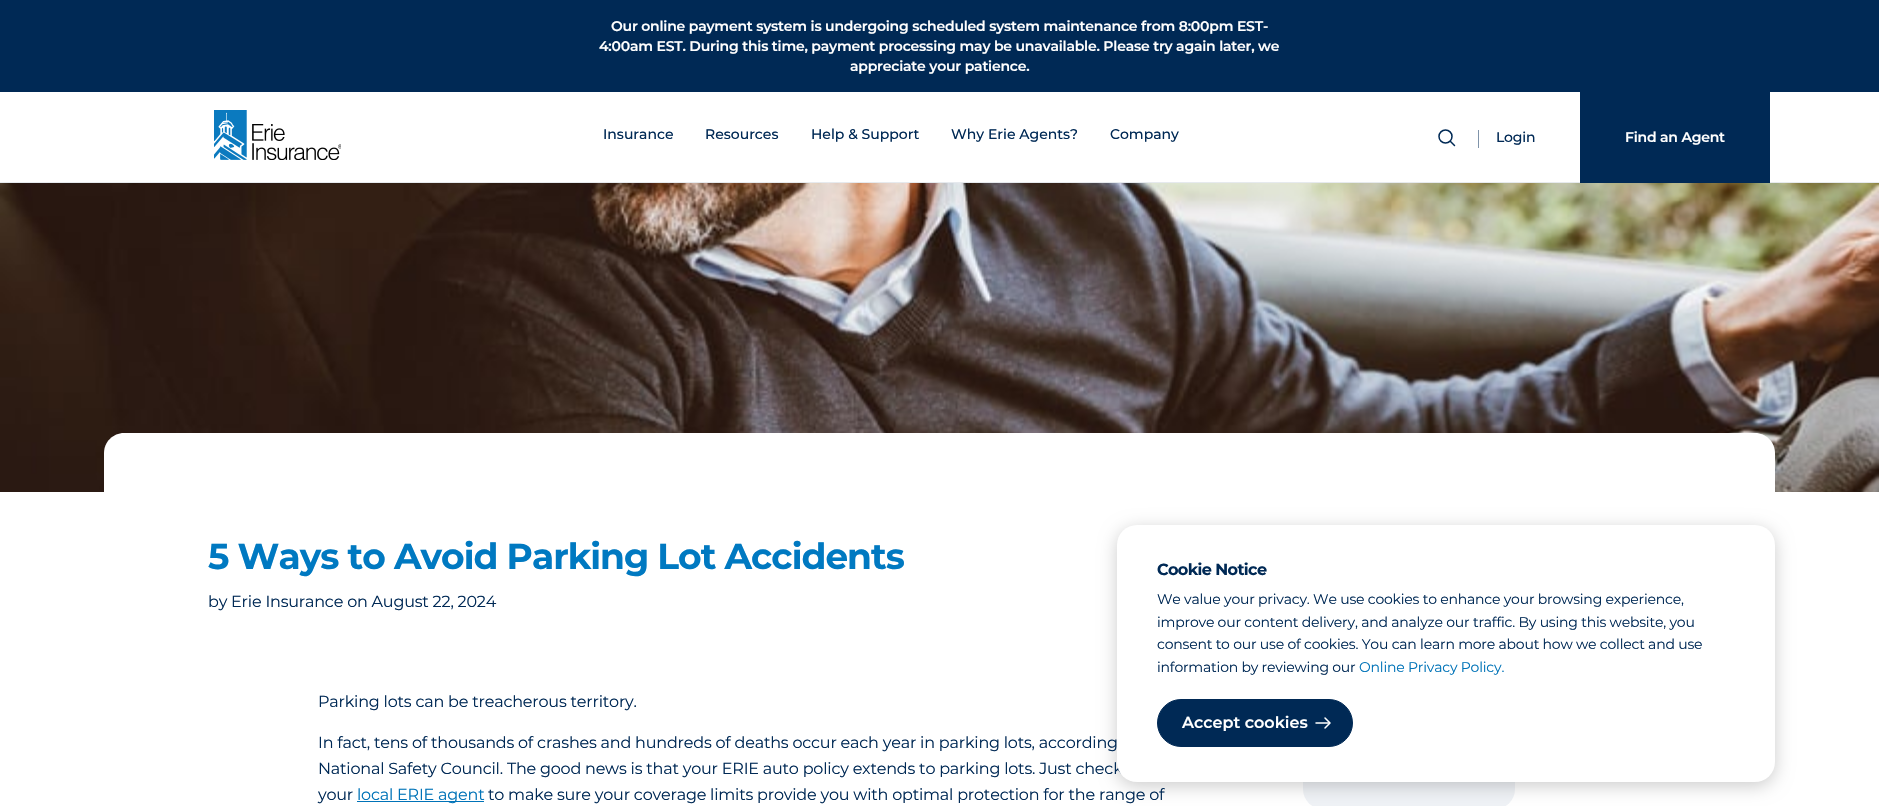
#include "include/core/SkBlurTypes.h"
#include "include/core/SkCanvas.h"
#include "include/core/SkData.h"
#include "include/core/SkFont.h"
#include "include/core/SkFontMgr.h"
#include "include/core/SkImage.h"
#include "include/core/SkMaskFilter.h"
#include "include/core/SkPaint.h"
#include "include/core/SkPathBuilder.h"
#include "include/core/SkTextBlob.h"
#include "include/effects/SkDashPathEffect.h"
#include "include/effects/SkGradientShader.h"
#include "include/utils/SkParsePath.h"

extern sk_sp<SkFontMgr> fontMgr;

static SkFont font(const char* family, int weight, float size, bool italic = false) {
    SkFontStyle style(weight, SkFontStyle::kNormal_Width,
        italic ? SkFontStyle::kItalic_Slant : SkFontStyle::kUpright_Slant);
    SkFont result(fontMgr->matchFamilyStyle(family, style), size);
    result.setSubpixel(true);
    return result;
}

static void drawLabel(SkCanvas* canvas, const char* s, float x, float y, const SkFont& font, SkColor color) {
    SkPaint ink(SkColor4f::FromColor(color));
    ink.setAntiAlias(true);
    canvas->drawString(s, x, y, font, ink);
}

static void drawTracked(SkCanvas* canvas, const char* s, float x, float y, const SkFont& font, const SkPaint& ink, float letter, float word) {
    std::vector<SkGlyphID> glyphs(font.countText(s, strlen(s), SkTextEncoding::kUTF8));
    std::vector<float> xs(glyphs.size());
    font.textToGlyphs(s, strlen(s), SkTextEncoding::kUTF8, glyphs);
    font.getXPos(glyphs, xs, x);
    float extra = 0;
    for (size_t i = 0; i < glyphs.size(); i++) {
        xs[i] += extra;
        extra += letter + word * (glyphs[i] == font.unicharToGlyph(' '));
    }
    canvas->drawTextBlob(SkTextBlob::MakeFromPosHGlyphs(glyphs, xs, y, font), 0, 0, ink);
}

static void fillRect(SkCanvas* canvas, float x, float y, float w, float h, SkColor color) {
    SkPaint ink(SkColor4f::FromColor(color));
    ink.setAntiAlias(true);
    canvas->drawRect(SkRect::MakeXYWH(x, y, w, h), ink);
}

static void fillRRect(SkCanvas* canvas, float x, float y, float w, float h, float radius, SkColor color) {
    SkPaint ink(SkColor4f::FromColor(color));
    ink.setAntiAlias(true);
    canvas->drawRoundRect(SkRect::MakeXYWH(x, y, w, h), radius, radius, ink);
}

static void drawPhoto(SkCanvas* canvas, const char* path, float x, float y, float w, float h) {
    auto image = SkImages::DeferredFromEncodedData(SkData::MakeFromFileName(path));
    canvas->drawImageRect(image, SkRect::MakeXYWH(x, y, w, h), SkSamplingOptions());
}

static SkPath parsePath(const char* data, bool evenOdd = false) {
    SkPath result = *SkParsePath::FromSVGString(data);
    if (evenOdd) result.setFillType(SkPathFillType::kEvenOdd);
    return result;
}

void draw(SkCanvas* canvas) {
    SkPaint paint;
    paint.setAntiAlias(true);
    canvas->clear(0xFFFFFFFF);
    fillRect(canvas, 0, 0, 1879, 92, 0xFF002955);
    SkFont font1 = font("Montserrat", 600, 14);
    paint.setColor(0xFFFFFFFF);
    drawTracked(canvas, "Our online payment system is undergoing scheduled system maintenance from 8:00pm EST-", 611, 31, font1, paint, -0.2f, 0);
    drawTracked(canvas, "4:00am EST. During this time, payment processing may be unavailable. Please try again later, we", 599, 51, font1, paint, -0.2f, 0);
    drawTracked(canvas, "appreciate your patience.", 850, 71, font1, paint, -0.2f, 0);
    fillRect(canvas, 0, 182, 1879, 1, 0xFFE6EAEE);
    drawPhoto(canvas, "assets/img1.png", 214, 110, 127, 50);
    SkFont font2 = font("Montserrat", 500, 14);
    drawLabel(canvas, "Insurance", 603, 139, font2, 0xFF002955);
    drawLabel(canvas, "Resources", 705, 139, font2, 0xFF002955);
    drawLabel(canvas, "Help & Support", 811, 139, font2, 0xFF002955);
    drawLabel(canvas, "Why Erie Agents?", 951, 139, font2, 0xFF002955);
    drawLabel(canvas, "Company", 1110, 139, font2, 0xFF002955);
    paint.setStroke(true);
    paint.setStrokeWidth(1.5f);
    paint.setColor(0xFF002955);
    canvas->drawCircle(1445.5f, 136.5f, 6.5f, paint);
    paint.setStrokeCap(SkPaint::kRound_Cap);
    canvas->drawPath(parsePath("M1450.5 141.5L1454.5 145.5"), paint);
    fillRect(canvas, 1478, 130, 1, 18, 0xFF8094AA);
    paint.setStroke(false);
    drawTracked(canvas, "Login", 1496, 142, font2, paint, -0.2f, 0);
    fillRect(canvas, 1580, 92, 190, 91, 0xFF002955);
    paint.setColor(0xFFFFFFFF);
    drawTracked(canvas, "Find an Agent", 1625, 142, font1, paint, -0.2f, 0);
    drawPhoto(canvas, "assets/img3.png", 0, 183, 1879, 309);
    canvas->drawPath(parsePath("M124 433H1755C1766 433 1775 442 1775 453V630H104V453C104 442 113 433 124 433Z"), paint);
    fillRRect(canvas, 1303, 689, 212, 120, 20, 0xFFEFF2F6);
    paint.setColor(0x33000000);
    paint.setMaskFilter(SkMaskFilter::MakeBlur(kNormal_SkBlurStyle, 9));
    canvas->drawRoundRect(SkRect::MakeXYWH(1117, 529, 658, 257), 20, 20, paint);
    paint.setMaskFilter(nullptr);
    SkFont font3 = font("Montserrat", 400, 16);
    paint.setColor(0xFF002955);
    drawTracked(canvas, "National Safety Council. The good news is that your ERIE auto policy extends to parking lots. Just check", 318, 774, font3, paint, -0.2f, 0);
    fillRRect(canvas, 1117, 525, 658, 257, 20, 0xFFFFFFFF);
    SkFont font4 = font("Montserrat", 700, 16);
    drawTracked(canvas, "Cookie Notice", 1157, 575, font4, paint, -0.6f, 0);
    SkFont font5 = font("Montserrat", 400, 14);
    drawTracked(canvas, "We value your privacy. We use cookies to enhance your browsing experience,", 1157, 604, font5, paint, -0.2f, 0);
    drawTracked(canvas, "improve our content delivery, and analyze our traffic. By using this website, you", 1157, 627, font5, paint, -0.2f, 0);
    drawTracked(canvas, "consent to our use of cookies. You can learn more about how we collect and use", 1157, 649, font5, paint, -0.2f, 0);
    drawTracked(canvas, "information by reviewing our", 1157, 672, font5, paint, -0.2f, 0);
    paint.setColor(0xFF0073B8);
    drawTracked(canvas, "Online Privacy Policy.", 1359, 672, font5, paint, -0.2f, 0);
    paint.setColor(0xFF002955);
    canvas->drawRoundRect(SkRect::MakeXYWH(1157.5f, 699.5f, 195, 47), 23.5f, 23.5f, paint);
    paint.setStroke(true);
    paint.setStrokeWidth(1);
    paint.setStrokeCap(SkPaint::kButt_Cap);
    canvas->drawRoundRect(SkRect::MakeXYWH(1157.5f, 699.5f, 195, 47), 23.5f, 23.5f, paint);
    SkFont font6 = font("Montserrat", 600, 16);
    drawLabel(canvas, "Accept cookies", 1182, 728, font6, 0xFFFFFFFF);
    drawPhoto(canvas, "assets/img2.png", 1315, 717, 16, 12);
    SkFont font7 = font("Montserrat", 700, 36);
    paint.setStroke(false);
    paint.setColor(0xFF0079C1);
    drawTracked(canvas, "5 Ways to Avoid Parking Lot Accidents", 208, 569, font7, paint, -1, 0);
    paint.setColor(0xFF002955);
    drawTracked(canvas, "by Erie Insurance on August 22, 2024", 208, 607, font3, paint, -0.2f, 0);
    drawTracked(canvas, "Parking lots can be treacherous territory.", 318, 707, font3, paint, -0.2f, 0);
    drawTracked(canvas, "In fact, tens of thousands of crashes and hundreds of deaths occur each year in parking lots, according", 318, 748, font3, paint, -0.2f, 0);
    drawTracked(canvas, "your", 318, 800, font3, paint, -0.2f, 0);
    fillRect(canvas, 357, 801, 127, 1, 0xFF0073B8);
    paint.setColor(0xFF0073B8);
    drawTracked(canvas, "local ERIE agent", 357, 800, font3, paint, -0.2f, 0);
    paint.setColor(0xFF002955);
    drawTracked(canvas, "to make sure your coverage limits provide you with optimal protection for the range of", 488, 800, font3, paint, -0.2f, 0);
}
